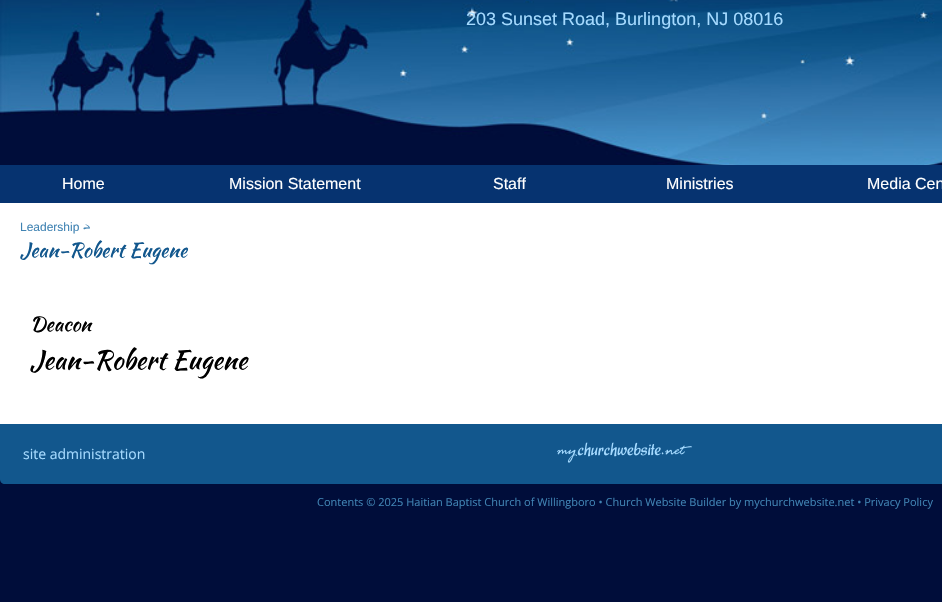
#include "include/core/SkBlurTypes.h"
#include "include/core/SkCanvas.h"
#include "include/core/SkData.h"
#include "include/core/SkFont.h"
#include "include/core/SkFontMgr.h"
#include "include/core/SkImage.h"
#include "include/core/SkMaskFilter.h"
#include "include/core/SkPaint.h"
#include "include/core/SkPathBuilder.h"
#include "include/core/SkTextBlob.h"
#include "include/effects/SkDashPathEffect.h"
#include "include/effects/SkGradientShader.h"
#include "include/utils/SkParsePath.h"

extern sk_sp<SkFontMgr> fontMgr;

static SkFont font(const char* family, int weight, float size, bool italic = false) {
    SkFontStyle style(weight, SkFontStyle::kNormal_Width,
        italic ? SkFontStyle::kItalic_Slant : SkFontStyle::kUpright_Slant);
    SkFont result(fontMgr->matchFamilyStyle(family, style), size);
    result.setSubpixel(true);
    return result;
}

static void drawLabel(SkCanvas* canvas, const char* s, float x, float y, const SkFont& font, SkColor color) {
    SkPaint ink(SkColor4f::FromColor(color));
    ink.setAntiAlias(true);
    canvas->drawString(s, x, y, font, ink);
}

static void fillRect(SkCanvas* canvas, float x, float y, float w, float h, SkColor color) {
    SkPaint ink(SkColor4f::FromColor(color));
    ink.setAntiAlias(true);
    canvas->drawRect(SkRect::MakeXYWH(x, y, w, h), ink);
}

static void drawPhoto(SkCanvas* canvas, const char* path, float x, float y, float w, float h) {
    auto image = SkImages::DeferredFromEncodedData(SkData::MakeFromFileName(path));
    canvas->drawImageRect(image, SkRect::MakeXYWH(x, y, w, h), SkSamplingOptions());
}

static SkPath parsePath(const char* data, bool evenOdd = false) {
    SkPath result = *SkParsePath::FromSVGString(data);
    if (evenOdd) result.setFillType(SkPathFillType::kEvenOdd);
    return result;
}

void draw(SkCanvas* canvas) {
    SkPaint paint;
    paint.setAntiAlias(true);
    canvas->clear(0xFF000D3A);
    drawPhoto(canvas, "assets/img1.png", 0, 0, 942, 165);
    SkFont font1 = font("Liberation Sans", 400, 18);
    drawLabel(canvas, "203 Sunset Road, Burlington, NJ 08016", 466, 25, font1, 0xFFA5DAFF);
    fillRect(canvas, 0, 165, 942, 38, 0xFF063370);
    SkFont font2 = font("Liberation Sans", 400, 16);
    drawLabel(canvas, "Home", 62, 189, font2, 0xFFFFFFFF);
    drawLabel(canvas, "Mission Statement", 229, 189, font2, 0xFFFFFFFF);
    drawLabel(canvas, "Staff", 493, 189, font2, 0xFFFFFFFF);
    drawLabel(canvas, "Ministries", 666, 189, font2, 0xFFFFFFFF);
    drawLabel(canvas, "Media Cen", 867, 189, font2, 0xFFFFFFFF);
    fillRect(canvas, 0, 203, 942, 221, 0xFFFFFFFF);
    SkFont font3 = font("Liberation Sans", 400, 12);
    drawLabel(canvas, "Leadership", 20, 231, font3, 0xFF4083B3);
    SkFont font4 = font("Kaushan Script", 400, 12);
    drawLabel(canvas, ">", 82, 231, font4, 0xFF4083B3);
    SkFont font5 = font("Kaushan Script", 400, 20);
    drawLabel(canvas, "Jean-Robert Eugene", 20, 257, font5, 0xFF12578D);
    drawLabel(canvas, "Deacon", 30, 331, font5, 0xFF000000);
    SkFont font6 = font("Kaushan Script", 400, 26);
    drawLabel(canvas, "Jean-Robert Eugene", 30, 369, font6, 0xFF000000);
    paint.setColor(0xFF12578D);
    canvas->drawPath(parsePath("M0 424H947V479C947 482 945 484 942 484H5C2 484 0 482 0 479Z"), paint);
    SkFont font7 = font("Open Sans", 400, 14);
    drawLabel(canvas, "site administration", 23, 459, font7, 0xFFA5DAFF);
    drawPhoto(canvas, "assets/img2.png", 557, 442, 135, 21);
    SkFont font8 = font("Open Sans", 400, 11);
    drawLabel(canvas, "Contents © 2025 Haitian Baptist Church of Willingboro • Church Website Builder by mychurchwebsite.net • Privacy Policy", 317, 506, font8, 0xFF4083B3);
}
